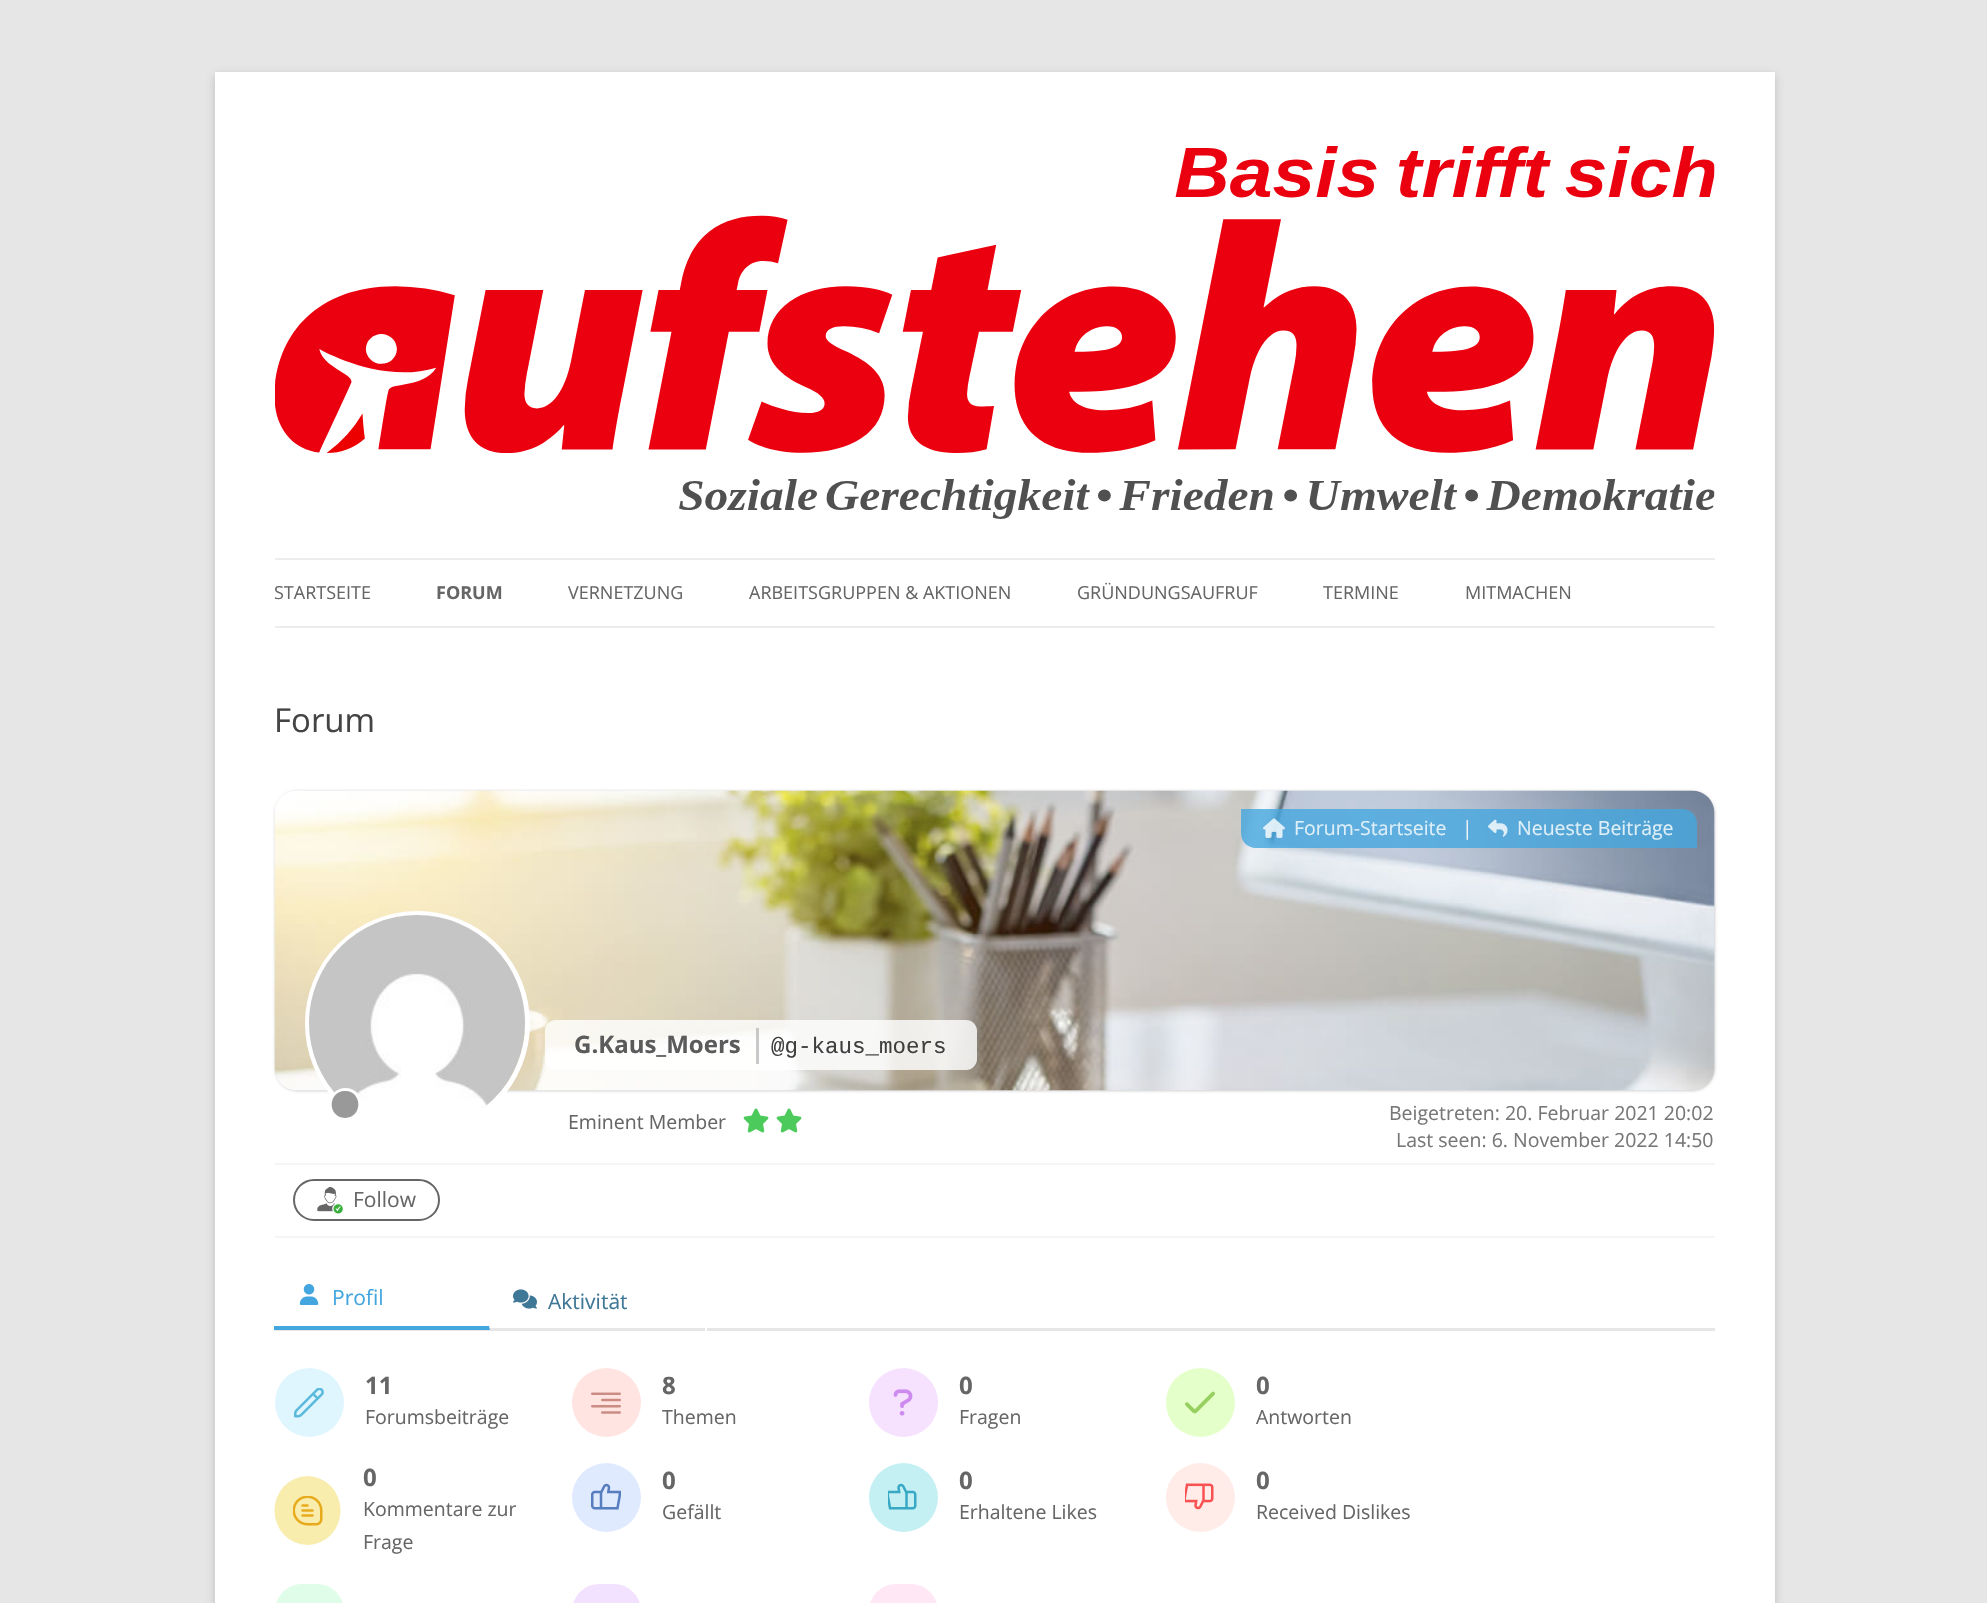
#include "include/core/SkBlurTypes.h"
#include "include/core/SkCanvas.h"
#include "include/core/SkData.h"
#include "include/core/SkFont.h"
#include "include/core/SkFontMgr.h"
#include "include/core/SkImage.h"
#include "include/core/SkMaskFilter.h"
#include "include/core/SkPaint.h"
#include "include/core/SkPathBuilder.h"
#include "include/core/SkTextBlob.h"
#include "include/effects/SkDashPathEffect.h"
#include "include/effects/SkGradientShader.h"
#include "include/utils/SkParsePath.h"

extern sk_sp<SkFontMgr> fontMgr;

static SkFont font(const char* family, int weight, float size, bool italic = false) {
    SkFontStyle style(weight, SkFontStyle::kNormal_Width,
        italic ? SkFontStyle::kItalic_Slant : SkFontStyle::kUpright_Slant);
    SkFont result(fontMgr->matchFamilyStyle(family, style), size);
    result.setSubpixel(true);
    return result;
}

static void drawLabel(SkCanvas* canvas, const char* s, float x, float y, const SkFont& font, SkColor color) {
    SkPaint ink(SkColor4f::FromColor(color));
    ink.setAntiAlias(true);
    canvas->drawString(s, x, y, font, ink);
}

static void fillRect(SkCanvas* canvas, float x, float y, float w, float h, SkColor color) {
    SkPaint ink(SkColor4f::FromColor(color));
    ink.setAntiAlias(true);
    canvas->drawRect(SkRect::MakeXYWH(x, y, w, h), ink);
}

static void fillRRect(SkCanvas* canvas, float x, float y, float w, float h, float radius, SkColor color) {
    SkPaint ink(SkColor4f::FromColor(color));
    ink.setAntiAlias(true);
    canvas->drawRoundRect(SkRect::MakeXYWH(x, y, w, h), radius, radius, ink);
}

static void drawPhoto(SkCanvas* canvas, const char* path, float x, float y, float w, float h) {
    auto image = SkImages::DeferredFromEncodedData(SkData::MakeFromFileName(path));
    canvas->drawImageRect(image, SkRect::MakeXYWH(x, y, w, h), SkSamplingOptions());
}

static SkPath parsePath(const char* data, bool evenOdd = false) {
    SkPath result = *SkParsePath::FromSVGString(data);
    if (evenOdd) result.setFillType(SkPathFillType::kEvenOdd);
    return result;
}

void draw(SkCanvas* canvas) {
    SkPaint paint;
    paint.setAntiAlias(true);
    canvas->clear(0xFFE6E6E6);
    paint.setColor(0x4D646464);
    paint.setMaskFilter(SkMaskFilter::MakeBlur(kNormal_SkBlurStyle, 4.5f));
    canvas->drawRect(SkRect::MakeXYWH(215, 75, 1560, 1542), paint);
    paint.setMaskFilter(nullptr);
    fillRect(canvas, 215, 72, 1560, 1531, 0xFFFFFFFF);
    drawPhoto(canvas, "assets/img1.png", 275, 146, 1440, 373);
    fillRect(canvas, 275, 558, 1440, 2, 0xFFEDEDED);
    fillRect(canvas, 275, 626, 1440, 2, 0xFFEDEDED);
    SkFont font1 = font("Open Sans", 400, 18);
    drawLabel(canvas, "STARTSEITE", 274, 599, font1, 0xFF666666);
    SkFont font2 = font("Open Sans", 700, 18);
    drawLabel(canvas, "FORUM", 436, 599, font2, 0xFF666666);
    drawLabel(canvas, "VERNETZUNG", 568, 599, font1, 0xFF666666);
    drawLabel(canvas, "ARBEITSGRUPPEN & AKTIONEN", 749, 599, font1, 0xFF666666);
    drawLabel(canvas, "GRÜNDUNGSAUFRUF", 1077, 599, font1, 0xFF666666);
    drawLabel(canvas, "TERMINE", 1323, 599, font1, 0xFF666666);
    drawLabel(canvas, "MITMACHEN", 1465, 599, font1, 0xFF666666);
    SkFont font3 = font("Open Sans", 400, 33);
    drawLabel(canvas, "Forum", 274, 732, font3, 0xFF444444);
    paint.setColor(0xFFCCCCCC);
    paint.setMaskFilter(SkMaskFilter::MakeBlur(kNormal_SkBlurStyle, 1.5f));
    canvas->drawRoundRect(SkRect::MakeXYWH(275, 791, 1440, 300), 23, 23, paint);
    paint.setMaskFilter(nullptr);
    drawPhoto(canvas, "assets/img2.png", 274, 790, 1441, 301);
    paint.setColor(0xCC43A6DF);
    canvas->drawPath(parsePath("M1241 809H1682C1690.5 809 1697 815.5 1697 824V848H1256C1247.5 848 1241 841.5 1241 833Z"), paint);
    drawPhoto(canvas, "assets/img3.png", 1263, 818, 22, 20);
    SkFont font4 = font("Open Sans", 400, 19.5f);
    drawLabel(canvas, "Forum-Startseite", 1294, 835, font4, 0xFFDEEFF8);
    drawLabel(canvas, "|", 1462, 835, font4, 0xFFF0F3F6);
    drawPhoto(canvas, "assets/img4.png", 1488, 819, 20, 18);
    drawLabel(canvas, "Neueste Beiträge", 1517, 835, font4, 0xFFDEEFF8);
    paint.setStroke(true);
    paint.setStrokeWidth(5);
    paint.setColor(0xFFFFFFFF);
    canvas->drawCircle(417.5f, 1023.5f, 110, paint);
    drawPhoto(canvas, "assets/img5.png", 309, 915, 216, 193);
    paint.setStrokeWidth(3);
    canvas->drawRoundRect(SkRect::MakeXYWH(330.5f, 1089.5f, 30, 31), 15, 15, paint);
    paint.setStroke(false);
    paint.setColor(0xFF999999);
    canvas->drawPath(parsePath("M345 1118C363 1117.5 362.5 1091 345 1091C327.5 1091 327 1117.5 345 1118Z"), paint);
    fillRRect(canvas, 545, 1020, 432, 50, 11, 0xCCFFFFFF);
    SkFont font5 = font("Open Sans", 700, 24);
    drawLabel(canvas, "G.Kaus_Moers", 574, 1053, font5, 0xFF5B5B5B);
    fillRect(canvas, 756, 1028, 3, 36, 0xCCBBBBBB);
    SkFont font6 = font("Liberation Mono", 400, 22.5f);
    drawLabel(canvas, "@g-kaus_moers", 771, 1053, font6, 0xFF3F3F3E);
    drawLabel(canvas, "Eminent Member", 568, 1129, font4, 0xFF666666);
    drawPhoto(canvas, "assets/img6.png", 743, 1108, 26, 25);
    drawPhoto(canvas, "assets/img6.png", 776, 1108, 26, 25);
    drawLabel(canvas, "Beigetreten: 20. Februar 2021 20:02", 1389, 1120, font4, 0xFF777777);
    drawLabel(canvas, "Last seen: 6. November 2022 14:50", 1396, 1147, font4, 0xFF777777);
    fillRect(canvas, 275, 1163, 1440, 2, 0xFFF5F5F5);
    fillRect(canvas, 275, 1236, 1440, 2, 0xFFF5F5F5);
    paint.setStroke(true);
    paint.setStrokeWidth(2);
    paint.setColor(0xFF666666);
    canvas->drawRoundRect(SkRect::MakeXYWH(294, 1180, 145, 40), 20, 20, paint);
    drawPhoto(canvas, "assets/img7.png", 317, 1187, 26, 27);
    SkFont font7 = font("Open Sans", 400, 21);
    drawLabel(canvas, "Follow", 353, 1207, font7, 0xFF666666);
    fillRect(canvas, 275, 1328, 1440, 3, 0xFFE6E6E6);
    paint.setStroke(false);
    paint.setColor(0xFFFFFFFF);
    canvas->drawPath(parsePath("M490 1268V1330L489 1326V1268Z"), paint);
    paint.setColor(0xFF43A6DF);
    canvas->drawPath(parsePath("M490 1330H274V1326H489Z"), paint);
    drawPhoto(canvas, "assets/img8.png", 299, 1284, 20, 21);
    drawLabel(canvas, "Profil", 332, 1305, font7, 0xFF43A6DF);
    fillRect(canvas, 705, 1328, 2, 3, 0xFFFFFFFF);
    drawPhoto(canvas, "assets/img9.png", 513, 1289, 24, 20);
    drawLabel(canvas, "Aktivität", 548, 1309, font7, 0xFF3F7796);
    paint.setColor(0xFFDFF6FF);
    canvas->drawCircle(309.5f, 1402.5f, 34.5f, paint);
    drawPhoto(canvas, "assets/img10.png", 294, 1388, 30, 30);
    drawLabel(canvas, "11", 365, 1394, font5, 0xFF666666);
    drawLabel(canvas, "Forumsbeiträge", 365, 1424, font4, 0xFF666666);
    paint.setColor(0xFFFFE4E1);
    canvas->drawCircle(606.5f, 1402.5f, 34.5f, paint);
    drawPhoto(canvas, "assets/img11.png", 591, 1392, 30, 22);
    drawLabel(canvas, "8", 662, 1394, font5, 0xFF666666);
    drawLabel(canvas, "Themen", 662, 1424, font4, 0xFF666666);
    paint.setColor(0xFFF6E1FF);
    canvas->drawCircle(903.5f, 1402.5f, 34.5f, paint);
    drawPhoto(canvas, "assets/img12.png", 893, 1389, 20, 27);
    drawLabel(canvas, "0", 959, 1394, font5, 0xFF666666);
    drawLabel(canvas, "Fragen", 959, 1424, font4, 0xFF666666);
    paint.setColor(0xFFE4FFCA);
    canvas->drawCircle(1200.5f, 1402.5f, 34.5f, paint);
    drawPhoto(canvas, "assets/img13.png", 1185, 1391, 30, 23);
    drawLabel(canvas, "0", 1256, 1394, font5, 0xFF666666);
    drawLabel(canvas, "Antworten", 1256, 1424, font4, 0xFF666666);
    paint.setColor(0xFFF8EDAD);
    canvas->drawOval(SkRect::MakeXYWH(274.5f, 1476, 66, 69), paint);
    drawPhoto(canvas, "assets/img14.png", 293, 1496, 30, 30);
    drawLabel(canvas, "0", 363, 1486, font5, 0xFF666666);
    drawLabel(canvas, "Kommentare zur", 363, 1516, font4, 0xFF666666);
    drawLabel(canvas, "Frage", 363, 1549, font4, 0xFF666666);
    paint.setColor(0xFFE0EAFF);
    canvas->drawCircle(606.5f, 1497.5f, 34.5f, paint);
    drawPhoto(canvas, "assets/img15.png", 591, 1483, 30, 27);
    drawLabel(canvas, "0", 662, 1489, font5, 0xFF666666);
    drawLabel(canvas, "Gefällt", 662, 1519, font4, 0xFF666666);
    paint.setColor(0xFFC4F0F3);
    canvas->drawCircle(903.5f, 1497.5f, 34.5f, paint);
    drawPhoto(canvas, "assets/img16.png", 888, 1483, 29, 27);
    drawLabel(canvas, "0", 959, 1489, font5, 0xFF666666);
    drawLabel(canvas, "Erhaltene Likes", 959, 1519, font4, 0xFF666666);
    paint.setColor(0xFFFFECE8);
    canvas->drawCircle(1200.5f, 1497.5f, 34.5f, paint);
    drawPhoto(canvas, "assets/img17.png", 1185, 1483, 29, 27);
    drawLabel(canvas, "0", 1256, 1489, font5, 0xFF666666);
    drawLabel(canvas, "Received Dislikes", 1256, 1519, font4, 0xFF666666);
    fillRRect(canvas, 275, 1584, 69, 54, 34.5f, 0xFFDFFDE8);
    fillRRect(canvas, 572, 1584, 69, 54, 34.5f, 0xFFF3E2FF);
    fillRRect(canvas, 869, 1584, 69, 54, 34.5f, 0xFFFFE7F6);
}
